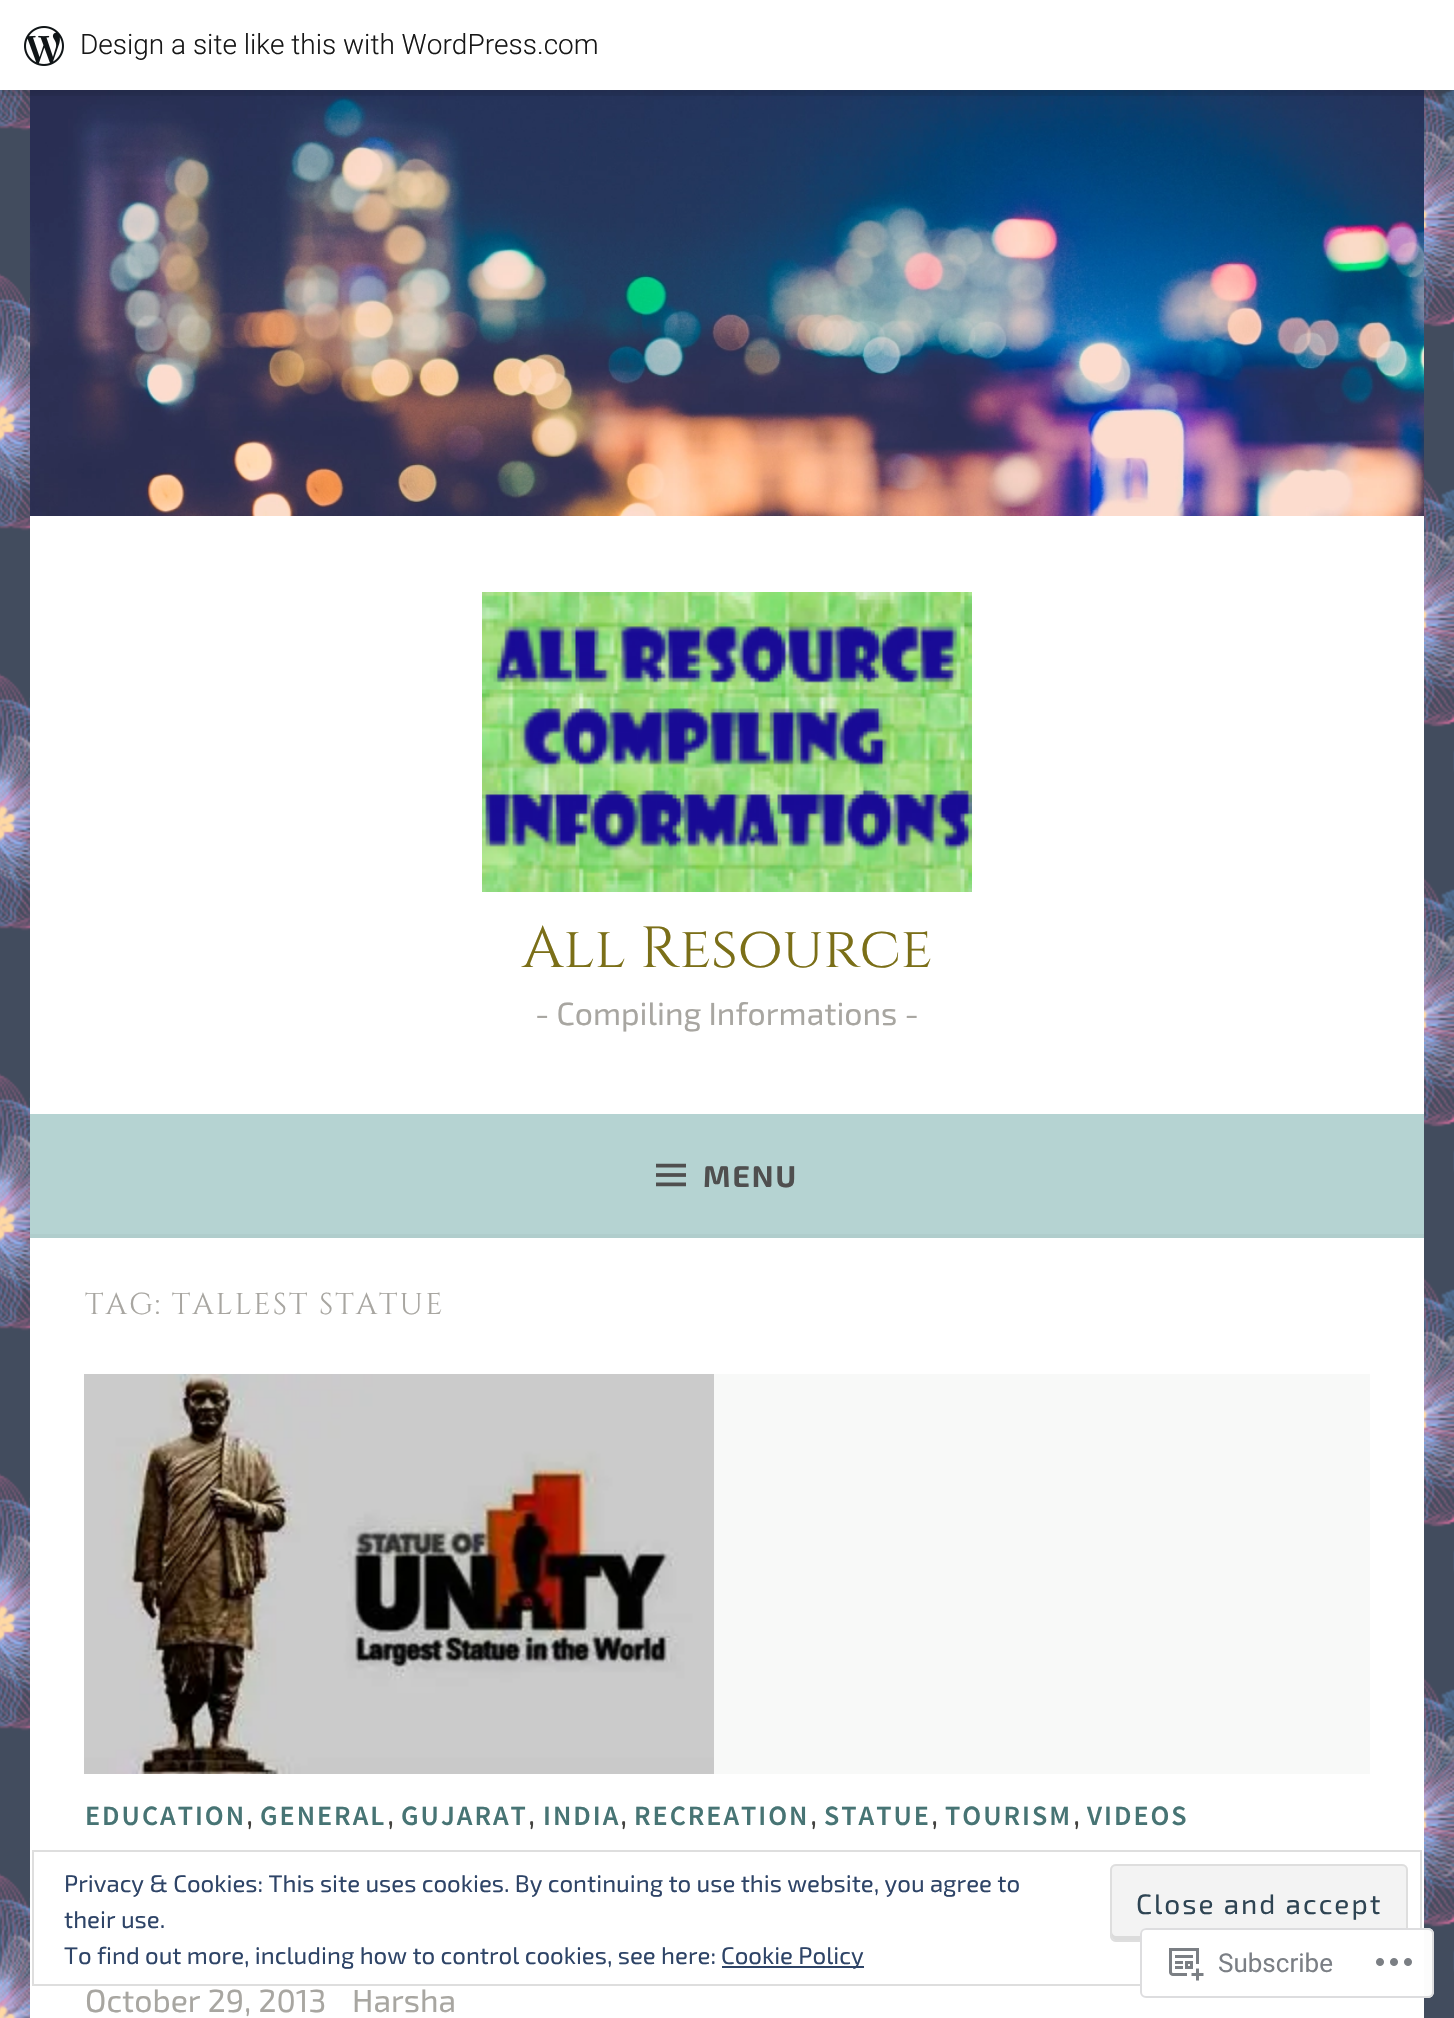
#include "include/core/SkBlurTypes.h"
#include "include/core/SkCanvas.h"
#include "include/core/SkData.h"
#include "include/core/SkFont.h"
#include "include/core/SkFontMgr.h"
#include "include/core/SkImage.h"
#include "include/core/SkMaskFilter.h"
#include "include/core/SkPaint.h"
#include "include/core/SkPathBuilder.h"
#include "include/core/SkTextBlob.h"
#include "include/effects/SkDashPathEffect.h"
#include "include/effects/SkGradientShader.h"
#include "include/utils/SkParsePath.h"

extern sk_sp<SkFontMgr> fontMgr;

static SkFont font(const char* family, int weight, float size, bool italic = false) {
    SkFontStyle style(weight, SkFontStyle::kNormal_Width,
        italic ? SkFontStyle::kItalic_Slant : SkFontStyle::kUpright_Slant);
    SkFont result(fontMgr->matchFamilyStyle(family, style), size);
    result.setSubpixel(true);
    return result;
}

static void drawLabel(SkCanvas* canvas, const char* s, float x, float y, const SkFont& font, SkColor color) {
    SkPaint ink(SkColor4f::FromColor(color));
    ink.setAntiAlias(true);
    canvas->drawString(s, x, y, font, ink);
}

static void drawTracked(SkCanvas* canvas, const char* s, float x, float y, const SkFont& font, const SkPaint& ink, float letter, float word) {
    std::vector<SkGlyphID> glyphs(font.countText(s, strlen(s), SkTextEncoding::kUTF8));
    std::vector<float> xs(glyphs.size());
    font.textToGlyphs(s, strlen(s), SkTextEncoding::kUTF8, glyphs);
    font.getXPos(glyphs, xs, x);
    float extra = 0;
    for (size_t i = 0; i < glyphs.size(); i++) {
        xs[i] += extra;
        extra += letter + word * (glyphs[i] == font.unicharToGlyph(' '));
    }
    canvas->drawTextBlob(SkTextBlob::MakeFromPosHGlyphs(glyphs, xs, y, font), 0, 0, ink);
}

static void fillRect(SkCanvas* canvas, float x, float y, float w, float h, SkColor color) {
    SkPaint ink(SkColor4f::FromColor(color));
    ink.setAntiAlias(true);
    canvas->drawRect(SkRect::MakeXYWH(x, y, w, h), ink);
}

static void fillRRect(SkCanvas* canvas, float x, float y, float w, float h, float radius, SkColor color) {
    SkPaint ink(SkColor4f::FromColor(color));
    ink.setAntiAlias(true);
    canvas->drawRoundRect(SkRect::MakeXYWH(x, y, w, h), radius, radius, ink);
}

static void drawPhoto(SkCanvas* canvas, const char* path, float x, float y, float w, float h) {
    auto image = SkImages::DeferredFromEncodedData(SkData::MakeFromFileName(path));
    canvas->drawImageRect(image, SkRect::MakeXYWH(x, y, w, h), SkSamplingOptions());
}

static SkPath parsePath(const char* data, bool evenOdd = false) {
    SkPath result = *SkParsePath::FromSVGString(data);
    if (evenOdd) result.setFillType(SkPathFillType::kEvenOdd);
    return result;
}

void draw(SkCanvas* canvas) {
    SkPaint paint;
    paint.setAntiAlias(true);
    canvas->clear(0xFFFFFFFF);
    drawPhoto(canvas, "assets/img1.png", 0, 90, 1454, 1928);
    drawPhoto(canvas, "assets/img3.png", 30, 90, 1394, 426);
    paint.setColor(0x0D000000);
    paint.setMaskFilter(SkMaskFilter::MakeBlur(kNormal_SkBlurStyle, 2));
    canvas->drawRect(SkRect::MakeXYWH(0, 2, 1454, 90), paint);
    paint.setMaskFilter(nullptr);
    paint.setColor(0x14000000);
    canvas->drawPath(parsePath("M2 90V96H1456V6H1454V90Z"), paint);
    fillRect(canvas, 0, 0, 1454, 90, 0xFFFFFFFF);
    drawPhoto(canvas, "assets/img2.png", 24, 26, 40, 40);
    SkFont font1 = font("Roboto", 300, 28);
    drawLabel(canvas, "Design a site like this with WordPress.com", 80, 54, font1, 0xFF171717);
    fillRect(canvas, 30, 516, 1394, 598, 0xFFFFFFFF);
    drawPhoto(canvas, "assets/img4.png", 482, 592, 490, 300);
    SkFont font2 = font("Cinzel", 400, 58);
    drawLabel(canvas, "All Resource", 522, 967, font2, 0xFF7B6F18);
    SkFont font3 = font("Exo 2", 400, 32);
    drawLabel(canvas, "- Compiling Informations -", 535, 1025, font3, 0xFFA8A6A1);
    fillRect(canvas, 30, 1114, 1394, 120, 0xFFB5D3D2);
    fillRect(canvas, 30, 1234, 1394, 4, 0xFFB0CDCC);
    drawPhoto(canvas, "assets/img5.png", 656, 1163, 30, 24);
    SkFont font4 = font("Exo 2", 700, 30);
    paint.setColor(0xFF4F4F4F);
    drawTracked(canvas, "MENU", 703, 1187, font4, paint, 2, 0);
    fillRect(canvas, 30, 1238, 1394, 780, 0xFFFFFFFF);
    SkFont font5 = font("Cinzel", 400, 30);
    paint.setColor(0xFFA8A6A1);
    drawTracked(canvas, "TAG: TALLEST STATUE", 85, 1314, font5, paint, 2, 0);
    fillRect(canvas, 714, 1374, 656, 400, 0xFFF8F9F8);
    drawPhoto(canvas, "assets/img6.png", 84, 1374, 630, 400);
    SkFont font6 = font("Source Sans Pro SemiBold", 600, 28);
    paint.setColor(0xFF477474);
    drawTracked(canvas, "EDUCATION", 85, 1825, font6, paint, 2, 0);
    drawLabel(canvas, ",", 246, 1825, font3, 0xFF444340);
    drawTracked(canvas, "GENERAL", 260, 1825, font6, paint, 2, 0);
    drawLabel(canvas, ",", 387, 1825, font3, 0xFF444340);
    drawTracked(canvas, "GUJARAT", 401, 1825, font6, paint, 2, 0);
    drawLabel(canvas, ",", 528, 1825, font3, 0xFF444340);
    drawTracked(canvas, "INDIA", 543, 1825, font6, paint, 2, 0);
    drawLabel(canvas, ",", 620, 1825, font3, 0xFF444340);
    drawTracked(canvas, "RECREATION", 634, 1825, font6, paint, 2, 0);
    drawLabel(canvas, ",", 810, 1825, font3, 0xFF444340);
    drawTracked(canvas, "STATUE", 824, 1825, font6, paint, 2, 0);
    drawLabel(canvas, ",", 931, 1825, font3, 0xFF444340);
    drawTracked(canvas, "TOURISM", 945, 1825, font6, paint, 2, 0);
    drawLabel(canvas, ",", 1073, 1825, font3, 0xFF444340);
    drawTracked(canvas, "VIDEOS", 1087, 1825, font6, paint, 2, 0);
    drawLabel(canvas, "October 29, 2013", 85, 2012, font3, 0xFFA8A6A1);
    drawLabel(canvas, "Harsha", 352, 2012, font3, 0xFFA8A6A1);
    paint.setStroke(true);
    paint.setStrokeWidth(2);
    paint.setColor(0xFFDEDEDE);
    canvas->drawRect(SkRect::MakeXYWH(33, 1851, 1388, 134), paint);
    SkFont font7 = font("Exo 2", 400, 24);
    drawLabel(canvas, "Privacy & Cookies: This site uses cookies. By continuing to use this website, you agree to", 64, 1892, font7, 0xFF2E4467);
    drawLabel(canvas, "their use.", 64, 1928, font7, 0xFF2E4467);
    fillRRect(canvas, 1110, 1864, 298, 78, 6, 0xFFF3F3F3);
    paint.setStroke(false);
    paint.setColor(0xFFDBDBDB);
    canvas->drawPath(parsePath("M1112 1932C1112 1935 1111 1939 1115 1940H1402C1406 1940 1406 1935 1406 1932C1406 1934 1404 1936 1402 1936H1116C1114 1936 1112 1934 1112 1932Z"), paint);
    paint.setStroke(true);
    paint.setColor(0xFFDEDEDE);
    canvas->drawRoundRect(SkRect::MakeXYWH(1111, 1865, 296, 76), 5, 5, paint);
    SkFont font8 = font("Exo 2", 400, 28);
    paint.setStroke(false);
    paint.setColor(0xFF2E4453);
    drawTracked(canvas, "Close and accept", 1136, 1914, font8, paint, 2, 0);
    drawLabel(canvas, "To find out more, including how to control cookies, see here:", 64, 1964, font7, 0xFF2E4467);
    fillRect(canvas, 722, 1966, 142, 2, 0xFF2E4467);
    drawLabel(canvas, "Cookie Policy", 721, 1964, font7, 0xFF2E4467);
    fillRRect(canvas, 1140, 1928, 294, 70, 6, 0xFAFFFFFF);
    paint.setStroke(true);
    paint.setColor(0xFADCDCDE);
    canvas->drawRoundRect(SkRect::MakeXYWH(1141, 1929, 292, 68), 5, 5, paint);
    drawPhoto(canvas, "assets/img7.png", 1169, 1948, 35, 33);
    SkFont font9 = font("Roboto", 400, 26);
    drawLabel(canvas, "Subscribe", 1218, 1972, font9, 0xFF7B7F85);
    drawPhoto(canvas, "assets/img8.png", 1376, 1958, 36, 8);
}
